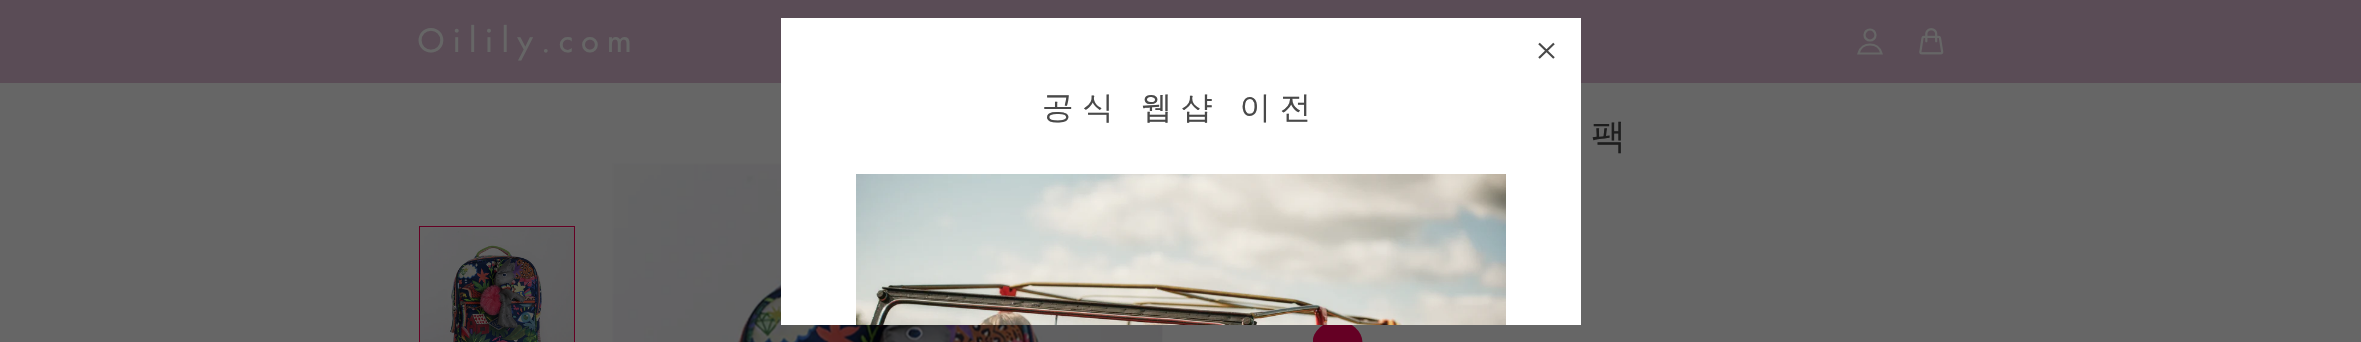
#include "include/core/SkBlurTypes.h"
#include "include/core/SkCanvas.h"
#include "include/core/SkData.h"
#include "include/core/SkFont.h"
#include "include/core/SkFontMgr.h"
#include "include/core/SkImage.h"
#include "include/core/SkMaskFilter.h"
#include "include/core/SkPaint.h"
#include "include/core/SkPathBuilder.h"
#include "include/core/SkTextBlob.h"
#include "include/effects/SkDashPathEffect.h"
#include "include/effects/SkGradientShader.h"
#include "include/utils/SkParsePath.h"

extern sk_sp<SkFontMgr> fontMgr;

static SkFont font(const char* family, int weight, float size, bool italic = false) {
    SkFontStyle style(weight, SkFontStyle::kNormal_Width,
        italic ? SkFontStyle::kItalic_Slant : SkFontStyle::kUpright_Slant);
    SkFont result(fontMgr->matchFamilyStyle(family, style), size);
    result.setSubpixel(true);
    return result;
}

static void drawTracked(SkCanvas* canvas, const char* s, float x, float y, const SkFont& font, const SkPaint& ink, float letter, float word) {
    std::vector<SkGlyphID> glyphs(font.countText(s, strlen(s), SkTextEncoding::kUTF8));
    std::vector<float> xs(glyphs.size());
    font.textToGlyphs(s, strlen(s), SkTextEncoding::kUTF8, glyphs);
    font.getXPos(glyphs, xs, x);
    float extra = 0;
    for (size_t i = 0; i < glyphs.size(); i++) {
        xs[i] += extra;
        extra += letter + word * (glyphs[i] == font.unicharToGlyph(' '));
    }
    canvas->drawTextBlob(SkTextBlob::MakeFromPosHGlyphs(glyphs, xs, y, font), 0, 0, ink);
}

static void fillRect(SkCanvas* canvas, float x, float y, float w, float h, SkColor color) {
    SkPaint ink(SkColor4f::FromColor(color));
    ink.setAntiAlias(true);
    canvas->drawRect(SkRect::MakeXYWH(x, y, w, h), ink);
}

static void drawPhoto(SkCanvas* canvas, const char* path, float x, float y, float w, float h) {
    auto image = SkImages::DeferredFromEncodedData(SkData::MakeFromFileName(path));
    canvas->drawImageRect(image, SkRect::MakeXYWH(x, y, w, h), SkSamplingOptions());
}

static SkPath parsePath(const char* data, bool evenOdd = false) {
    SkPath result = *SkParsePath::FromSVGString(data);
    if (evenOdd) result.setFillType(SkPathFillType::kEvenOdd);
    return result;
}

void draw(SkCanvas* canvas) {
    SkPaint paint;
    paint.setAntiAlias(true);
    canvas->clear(0xFF666666);
    fillRect(canvas, 0, 0, 2361, 83, 0xFF5A4C56);
    SkFont font1 = font("Futura", 500, 31.25f);
    paint.setColor(0xFF666666);
    drawTracked(canvas, "Oilily.com", 418, 52, font1, paint, 8.75f, 0);
    paint.setStroke(true);
    paint.setStrokeWidth(2.2f);
    canvas->drawCircle(1870, 35, 5.5f, paint);
    paint.setStrokeCap(SkPaint::kRound_Cap);
    canvas->drawPath(parsePath("M1858.5 53.5C1861.5 41.5 1878.5 41.5 1881.5 53.5Z"), paint);
    drawPhoto(canvas, "assets/img1.png", 1919, 28, 25, 27);
    SkFont font2 = font("WenQuanYi Zen Hei", 500, 35);
    paint.setStroke(false);
    paint.setColor(0xFF1D1D1D);
    drawTracked(canvas, "팩", 1591, 148, font2, paint, 4, 0);
    canvas->save();
    canvas->clipRect(SkRect::MakeXYWH(1313, 321, 631, 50));
    paint.setColor(0xFF650024);
    canvas->drawOval(SkRect::MakeXYWH(1312.5f, 321, 50, 44), paint);
    canvas->restore();
    paint.setStroke(true);
    paint.setStrokeWidth(1);
    paint.setStrokeCap(SkPaint::kButt_Cap);
    canvas->drawRect(SkRect::MakeXYWH(419.5f, 226.5f, 155, 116), paint);
    drawPhoto(canvas, "assets/img2.png", 420, 228, 154, 114);
    drawPhoto(canvas, "assets/img3.png", 612, 163, 551, 179);
    fillRect(canvas, 781, 18, 800, 307, 0xFFFFFFFF);
    paint.setStrokeWidth(2.2f);
    paint.setColor(0xFF494949);
    canvas->drawPath(parsePath("M1539 43.5L1554 58M1554 43.5L1539 58"), paint);
    SkFont font3 = font("WenQuanYi Zen Hei", 500, 31.5f);
    paint.setStroke(false);
    drawTracked(canvas, "공식 웹샵 이전", 1042, 118, font3, paint, 8.75f, 0);
    drawPhoto(canvas, "assets/img4.png", 856, 174, 650, 151);
}
